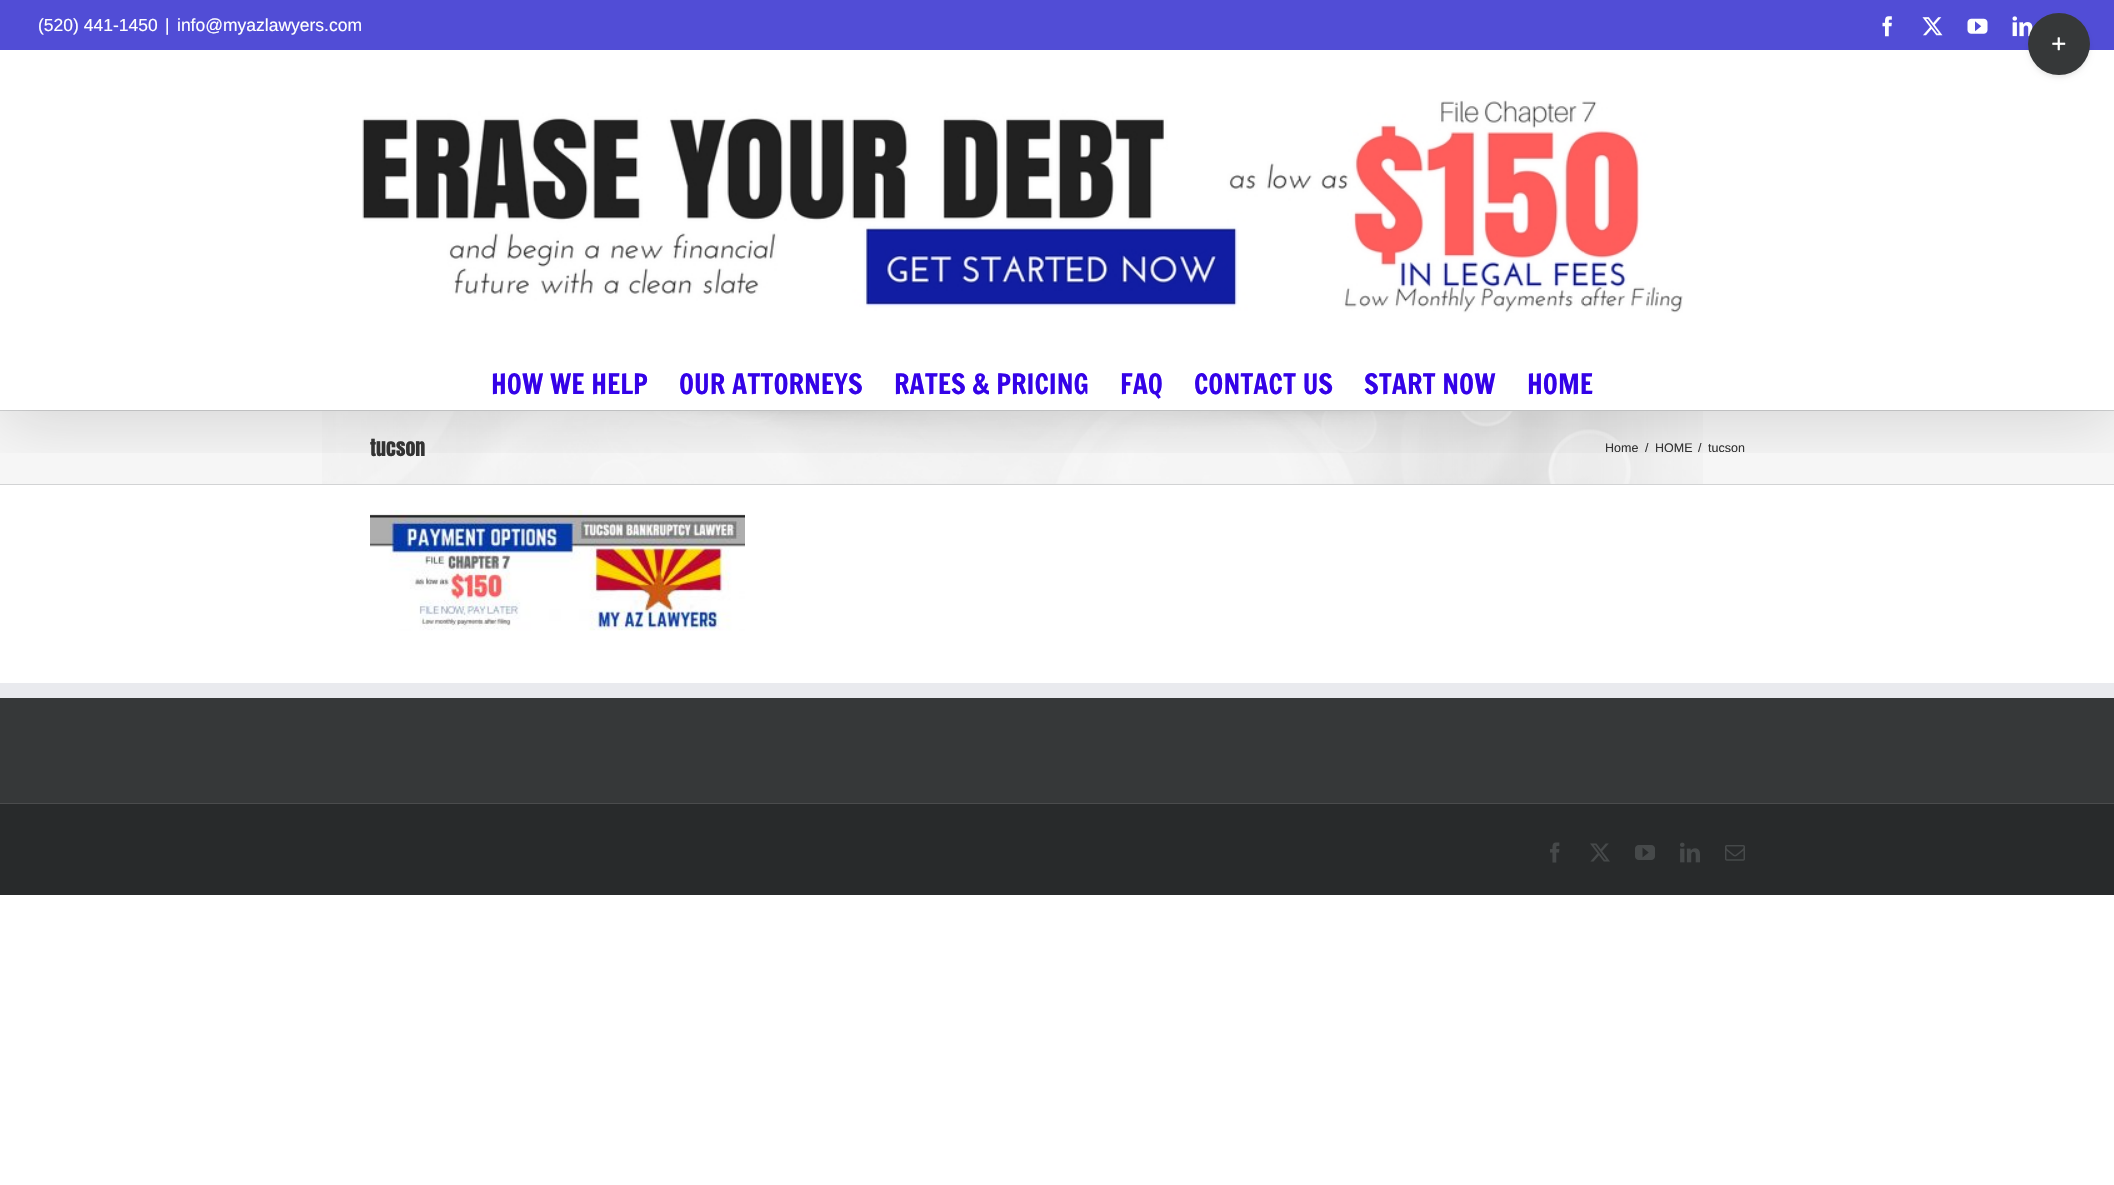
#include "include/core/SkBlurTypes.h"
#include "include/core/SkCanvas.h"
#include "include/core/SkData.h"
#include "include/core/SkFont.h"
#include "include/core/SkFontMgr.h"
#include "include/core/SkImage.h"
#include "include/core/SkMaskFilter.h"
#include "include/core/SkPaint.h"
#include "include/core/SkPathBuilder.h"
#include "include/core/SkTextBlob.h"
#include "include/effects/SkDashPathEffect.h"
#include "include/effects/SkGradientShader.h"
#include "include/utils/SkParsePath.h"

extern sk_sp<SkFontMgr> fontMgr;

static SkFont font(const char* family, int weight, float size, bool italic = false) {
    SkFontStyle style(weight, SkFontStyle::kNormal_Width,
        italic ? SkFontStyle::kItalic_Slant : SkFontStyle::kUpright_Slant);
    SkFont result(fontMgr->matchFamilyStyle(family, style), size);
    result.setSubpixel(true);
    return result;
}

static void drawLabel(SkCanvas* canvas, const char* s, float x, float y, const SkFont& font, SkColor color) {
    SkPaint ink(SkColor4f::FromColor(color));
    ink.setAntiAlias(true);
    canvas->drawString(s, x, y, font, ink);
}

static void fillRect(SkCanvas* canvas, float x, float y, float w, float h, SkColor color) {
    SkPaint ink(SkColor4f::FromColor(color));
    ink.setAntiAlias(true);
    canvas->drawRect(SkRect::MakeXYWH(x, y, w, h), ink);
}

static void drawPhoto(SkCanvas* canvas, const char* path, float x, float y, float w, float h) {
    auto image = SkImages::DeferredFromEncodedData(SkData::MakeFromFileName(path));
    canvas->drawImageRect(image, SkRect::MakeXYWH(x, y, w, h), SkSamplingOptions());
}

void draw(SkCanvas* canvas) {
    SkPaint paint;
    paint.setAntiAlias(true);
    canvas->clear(0xFFFFFFFF);
    fillRect(canvas, 0, 411, 2114, 73, 0xFFF6F6F6);
    drawPhoto(canvas, "assets/img8.png", 322, 411, 1381, 73);
    fillRect(canvas, 0, 410, 2114, 1, 0xFFD2D3D4);
    fillRect(canvas, 0, 484, 2114, 1, 0xFFD2D3D4);
    drawPhoto(canvas, "assets/img9.png", 370, 510, 375, 121);
    canvas->save();
    canvas->clipRect(SkRect::MakeXYWH(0, 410, 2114, 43));
    paint.setColor(0x24000000);
    paint.setMaskFilter(SkMaskFilter::MakeBlur(kNormal_SkBlurStyle, 31));
    canvas->drawRect(SkRect::MakeXYWH(3, 15, 2110, 405), paint);
    paint.setMaskFilter(nullptr);
    canvas->restore();
    fillRect(canvas, 0, 0, 2114, 50, 0xFF514DD6);
    SkFont font1 = font("Liberation Sans", 400, 17.5f);
    drawLabel(canvas, "(520) 441-1450", 38, 31, font1, 0xFFFFFFFF);
    drawLabel(canvas, "|", 165, 31, font1, 0xFFFFFFFF);
    drawLabel(canvas, "info@myazlawyers.com", 177, 31, font1, 0xFFFFFFFF);
    drawPhoto(canvas, "assets/img1.png", 1882, 16, 10, 21);
    drawPhoto(canvas, "assets/img2.png", 1922, 17, 21, 19);
    drawPhoto(canvas, "assets/img3.png", 1967, 18, 21, 16);
    drawPhoto(canvas, "assets/img4.png", 2012, 16, 21, 21);
    drawPhoto(canvas, "assets/img5.png", 2075, 18, 3, 2);
    drawPhoto(canvas, "assets/img6.png", 362, 100, 1321, 213);
    SkFont font2 = font("Francois One", 400, 27.5f);
    drawLabel(canvas, "HOW WE HELP", 491, 394, font2, 0xFF3402E8);
    drawLabel(canvas, "OUR ATTORNEYS", 679, 394, font2, 0xFF3402E8);
    drawLabel(canvas, "RATES & PRICING", 894, 394, font2, 0xFF3402E8);
    drawLabel(canvas, "FAQ", 1120, 394, font2, 0xFF3402E8);
    drawLabel(canvas, "CONTACT US", 1194, 394, font2, 0xFF3402E8);
    drawLabel(canvas, "START NOW", 1364, 394, font2, 0xFF3402E8);
    drawLabel(canvas, "HOME", 1527, 394, font2, 0xFF3402E8);
    paint.setMaskFilter(SkMaskFilter::MakeBlur(kNormal_SkBlurStyle, 3));
    canvas->drawRoundRect(SkRect::MakeXYWH(2030, 19, 58, 57), 28.5f, 28.5f, paint);
    paint.setMaskFilter(nullptr);
    paint.setColor(0xFF363839);
    canvas->drawCircle(2059, 44, 31, paint);
    drawPhoto(canvas, "assets/img7.png", 2052, 37, 14, 14);
    SkFont font3 = font("Anton", 400, 20);
    drawLabel(canvas, "tucson", 370, 456, font3, 0xFF333333);
    SkFont font4 = font("Liberation Sans", 400, 12.5f);
    drawLabel(canvas, "Home", 1605, 452, font4, 0xFF333333);
    drawLabel(canvas, "/", 1645, 452, font4, 0xFF333333);
    drawLabel(canvas, "HOME", 1655, 452, font4, 0xFF333333);
    drawLabel(canvas, "/", 1698, 452, font4, 0xFF333333);
    drawLabel(canvas, "tucson", 1708, 452, font4, 0xFF333333);
    fillRect(canvas, 0, 698, 2114, 105, 0xFF363839);
    fillRect(canvas, 0, 683, 2114, 15, 0xFFE9EAEE);
    fillRect(canvas, 0, 804, 2114, 91, 0xFF282A2B);
    fillRect(canvas, 0, 803, 2114, 1, 0xFF4B4C4D);
    drawPhoto(canvas, "assets/img10.png", 1550, 842, 10, 21);
    drawPhoto(canvas, "assets/img11.png", 1590, 843, 20, 19);
    drawPhoto(canvas, "assets/img12.png", 1635, 845, 20, 15);
    drawPhoto(canvas, "assets/img13.png", 1680, 842, 20, 21);
    drawPhoto(canvas, "assets/img14.png", 1725, 845, 20, 16);
}
